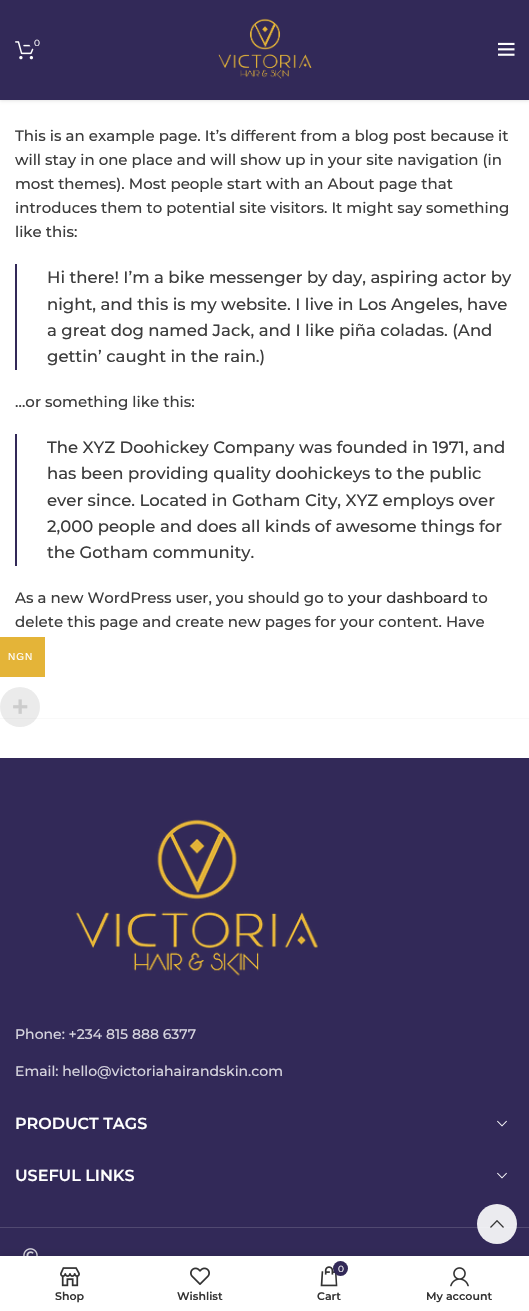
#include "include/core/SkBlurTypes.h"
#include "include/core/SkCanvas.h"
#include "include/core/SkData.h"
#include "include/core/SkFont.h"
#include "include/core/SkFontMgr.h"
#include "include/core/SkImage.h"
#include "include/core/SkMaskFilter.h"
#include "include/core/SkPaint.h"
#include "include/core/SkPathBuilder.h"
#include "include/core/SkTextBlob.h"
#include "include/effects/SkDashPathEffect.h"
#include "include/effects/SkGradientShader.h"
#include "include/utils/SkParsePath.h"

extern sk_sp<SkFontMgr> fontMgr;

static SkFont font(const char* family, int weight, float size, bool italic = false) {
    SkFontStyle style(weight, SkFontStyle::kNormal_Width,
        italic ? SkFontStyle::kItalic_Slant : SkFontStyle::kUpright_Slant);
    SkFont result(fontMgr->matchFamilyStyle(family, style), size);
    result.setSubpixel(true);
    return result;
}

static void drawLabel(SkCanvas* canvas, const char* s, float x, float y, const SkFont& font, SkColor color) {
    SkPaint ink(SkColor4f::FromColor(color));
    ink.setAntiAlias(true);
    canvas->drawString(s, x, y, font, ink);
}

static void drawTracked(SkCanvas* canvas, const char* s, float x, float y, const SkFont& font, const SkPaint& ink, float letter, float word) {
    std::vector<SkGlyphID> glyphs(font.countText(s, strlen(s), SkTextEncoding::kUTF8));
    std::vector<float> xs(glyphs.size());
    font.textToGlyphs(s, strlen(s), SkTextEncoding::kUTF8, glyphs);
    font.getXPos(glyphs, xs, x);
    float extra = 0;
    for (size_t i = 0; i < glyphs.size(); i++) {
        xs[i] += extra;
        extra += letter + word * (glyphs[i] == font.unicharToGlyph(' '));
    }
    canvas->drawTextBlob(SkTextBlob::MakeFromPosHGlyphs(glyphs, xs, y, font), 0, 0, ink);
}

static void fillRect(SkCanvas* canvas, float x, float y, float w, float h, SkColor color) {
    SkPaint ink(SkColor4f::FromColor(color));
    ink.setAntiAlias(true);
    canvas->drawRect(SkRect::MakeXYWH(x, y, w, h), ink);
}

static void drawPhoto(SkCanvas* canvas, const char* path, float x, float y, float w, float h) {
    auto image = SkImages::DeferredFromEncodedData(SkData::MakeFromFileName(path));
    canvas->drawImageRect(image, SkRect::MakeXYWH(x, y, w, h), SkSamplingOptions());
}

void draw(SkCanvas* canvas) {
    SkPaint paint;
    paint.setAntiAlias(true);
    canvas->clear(0xFFFFFFFF);
    paint.setColor(0x1A000000);
    paint.setMaskFilter(SkMaskFilter::MakeBlur(kNormal_SkBlurStyle, 1.5f));
    canvas->drawRect(SkRect::MakeXYWH(0, 1, 529, 100), paint);
    paint.setMaskFilter(nullptr);
    fillRect(canvas, 0, 0, 529, 100, 0xFF322958);
    drawPhoto(canvas, "assets/img1.png", 15, 41, 19, 19);
    paint.setColor(0xFF322958);
    canvas->drawCircle(36.5f, 42.5f, 7.5f, paint);
    SkFont font1 = font("Montserrat", 400, 9);
    drawLabel(canvas, "0", 34, 46, font1, 0xFFFFFFFF);
    drawPhoto(canvas, "assets/img2.png", 218, 18, 94, 61);
    drawPhoto(canvas, "assets/img3.png", 498, 42, 17, 14);
    SkFont font2 = font("Montserrat", 500, 15);
    drawLabel(canvas, "This is an example page. It’s different from a blog post because it", 15, 141, font2, 0xFF3D3D3D);
    drawLabel(canvas, "will stay in one place and will show up in your site navigation (in", 15, 165, font2, 0xFF3D3D3D);
    drawLabel(canvas, "most themes). Most people start with an About page that", 15, 189, font2, 0xFF3D3D3D);
    drawLabel(canvas, "introduces them to potential site visitors. It might say something", 15, 213, font2, 0xFF3D3D3D);
    drawLabel(canvas, "like this:", 15, 237, font2, 0xFF3D3D3D);
    fillRect(canvas, 15, 264, 2, 106, 0xFF322958);
    SkFont font3 = font("Montserrat", 500, 16.5f);
    drawLabel(canvas, "Hi there! I’m a bike messenger by day, aspiring actor by", 47, 283, font3, 0xFF3D3D3D);
    drawLabel(canvas, "night, and this is my website. I live in Los Angeles, have", 47, 310, font3, 0xFF3D3D3D);
    drawLabel(canvas, "a great dog named Jack, and I like piña coladas. (And", 47, 336, font3, 0xFF3D3D3D);
    drawLabel(canvas, "gettin’ caught in the rain.)", 47, 362, font3, 0xFF3D3D3D);
    drawLabel(canvas, "…or something like this:", 15, 407, font2, 0xFF3D3D3D);
    fillRect(canvas, 15, 434, 2, 132, 0xFF322958);
    drawLabel(canvas, "The XYZ Doohickey Company was founded in 1971, and", 47, 453, font3, 0xFF3D3D3D);
    drawLabel(canvas, "has been providing quality doohickeys to the public", 47, 479, font3, 0xFF3D3D3D);
    drawLabel(canvas, "ever since. Located in Gotham City, XYZ employs over", 47, 506, font3, 0xFF3D3D3D);
    drawLabel(canvas, "2,000 people and does all kinds of awesome things for", 47, 532, font3, 0xFF3D3D3D);
    drawLabel(canvas, "the Gotham community.", 47, 558, font3, 0xFF3D3D3D);
    drawLabel(canvas, "As a new WordPress user, you should go to", 15, 603, font2, 0xFF3D3D3D);
    drawLabel(canvas, "your dashboard", 348, 603, font2, 0xFF333333);
    drawLabel(canvas, "to", 472, 603, font2, 0xFF3D3D3D);
    drawLabel(canvas, "delete this page and create new pages for your content. Have", 15, 627, font2, 0xFF3D3D3D);
    fillRect(canvas, 0, 718, 529, 1, 0xFFF9F9F9);
    fillRect(canvas, 0, 758, 529, 498, 0xFF322958);
    drawPhoto(canvas, "assets/img4.png", 75, 819, 243, 157);
    SkFont font4 = font("Montserrat", 500, 14);
    drawLabel(canvas, "Phone: +234 815 888 6377", 15, 1039, font4, 0xFFD6D4DE);
    drawLabel(canvas, "Email: hello@victoriahairandskin.com", 15, 1076, font4, 0xFFD6D4DE);
    SkFont font5 = font("Montserrat", 600, 16);
    drawLabel(canvas, "PRODUCT TAGS", 15, 1129, font5, 0xFFFFFFFF);
    drawPhoto(canvas, "assets/img5.png", 497, 1120, 10, 7);
    drawLabel(canvas, "USEFUL LINKS", 15, 1181, font5, 0xFFFFFFFF);
    drawPhoto(canvas, "assets/img5.png", 497, 1172, 10, 7);
    fillRect(canvas, 0, 1227, 529, 1, 0xFF514971);
    drawPhoto(canvas, "assets/img6.png", 23, 1248, 15, 8);
    fillRect(canvas, 0, 637, 45, 40, 0xFFE4B438);
    SkFont font6 = font("Liberation Sans", 400, 10);
    paint.setColor(0xFFFFFFFF);
    drawTracked(canvas, "NGN", 8, 660, font6, paint, 1, 0);
    paint.setColor(0x33999999);
    canvas->drawCircle(20, 707, 20, paint);
    SkFont font7 = font("Liberation Sans", 700, 28);
    drawLabel(canvas, "+", 12, 716, font7, 0xFFCCCCCC);
    paint.setColor(0xE6FFFFFF);
    canvas->drawCircle(497, 1224, 20, paint);
    drawPhoto(canvas, "assets/img7.png", 490, 1220, 14, 8);
    paint.setColor(0x1F000000);
    paint.setMaskFilter(SkMaskFilter::MakeBlur(kNormal_SkBlurStyle, 4.5f));
    canvas->drawRect(SkRect::MakeXYWH(0, 1256, 529, 55), paint);
    paint.setMaskFilter(nullptr);
    fillRect(canvas, 0, 1256, 529, 55, 0xFFFFFFFF);
    drawPhoto(canvas, "assets/img8.png", 60, 1267, 20, 20);
    SkFont font8 = font("Montserrat", 600, 11);
    drawLabel(canvas, "Shop", 55, 1300, font8, 0xFF333333);
    drawPhoto(canvas, "assets/img9.png", 190, 1267, 20, 18);
    drawLabel(canvas, "Wishlist", 177, 1300, font8, 0xFF333333);
    drawPhoto(canvas, "assets/img10.png", 320, 1266, 18, 21);
    paint.setColor(0xFF322958);
    canvas->drawCircle(340.5f, 1268.5f, 7.5f, paint);
    drawLabel(canvas, "0", 338, 1272, font1, 0xFFFFFFFF);
    drawLabel(canvas, "Cart", 317, 1300, font8, 0xFF333333);
    drawPhoto(canvas, "assets/img11.png", 450, 1267, 19, 20);
    drawLabel(canvas, "My account", 426, 1300, font8, 0xFF333333);
}
